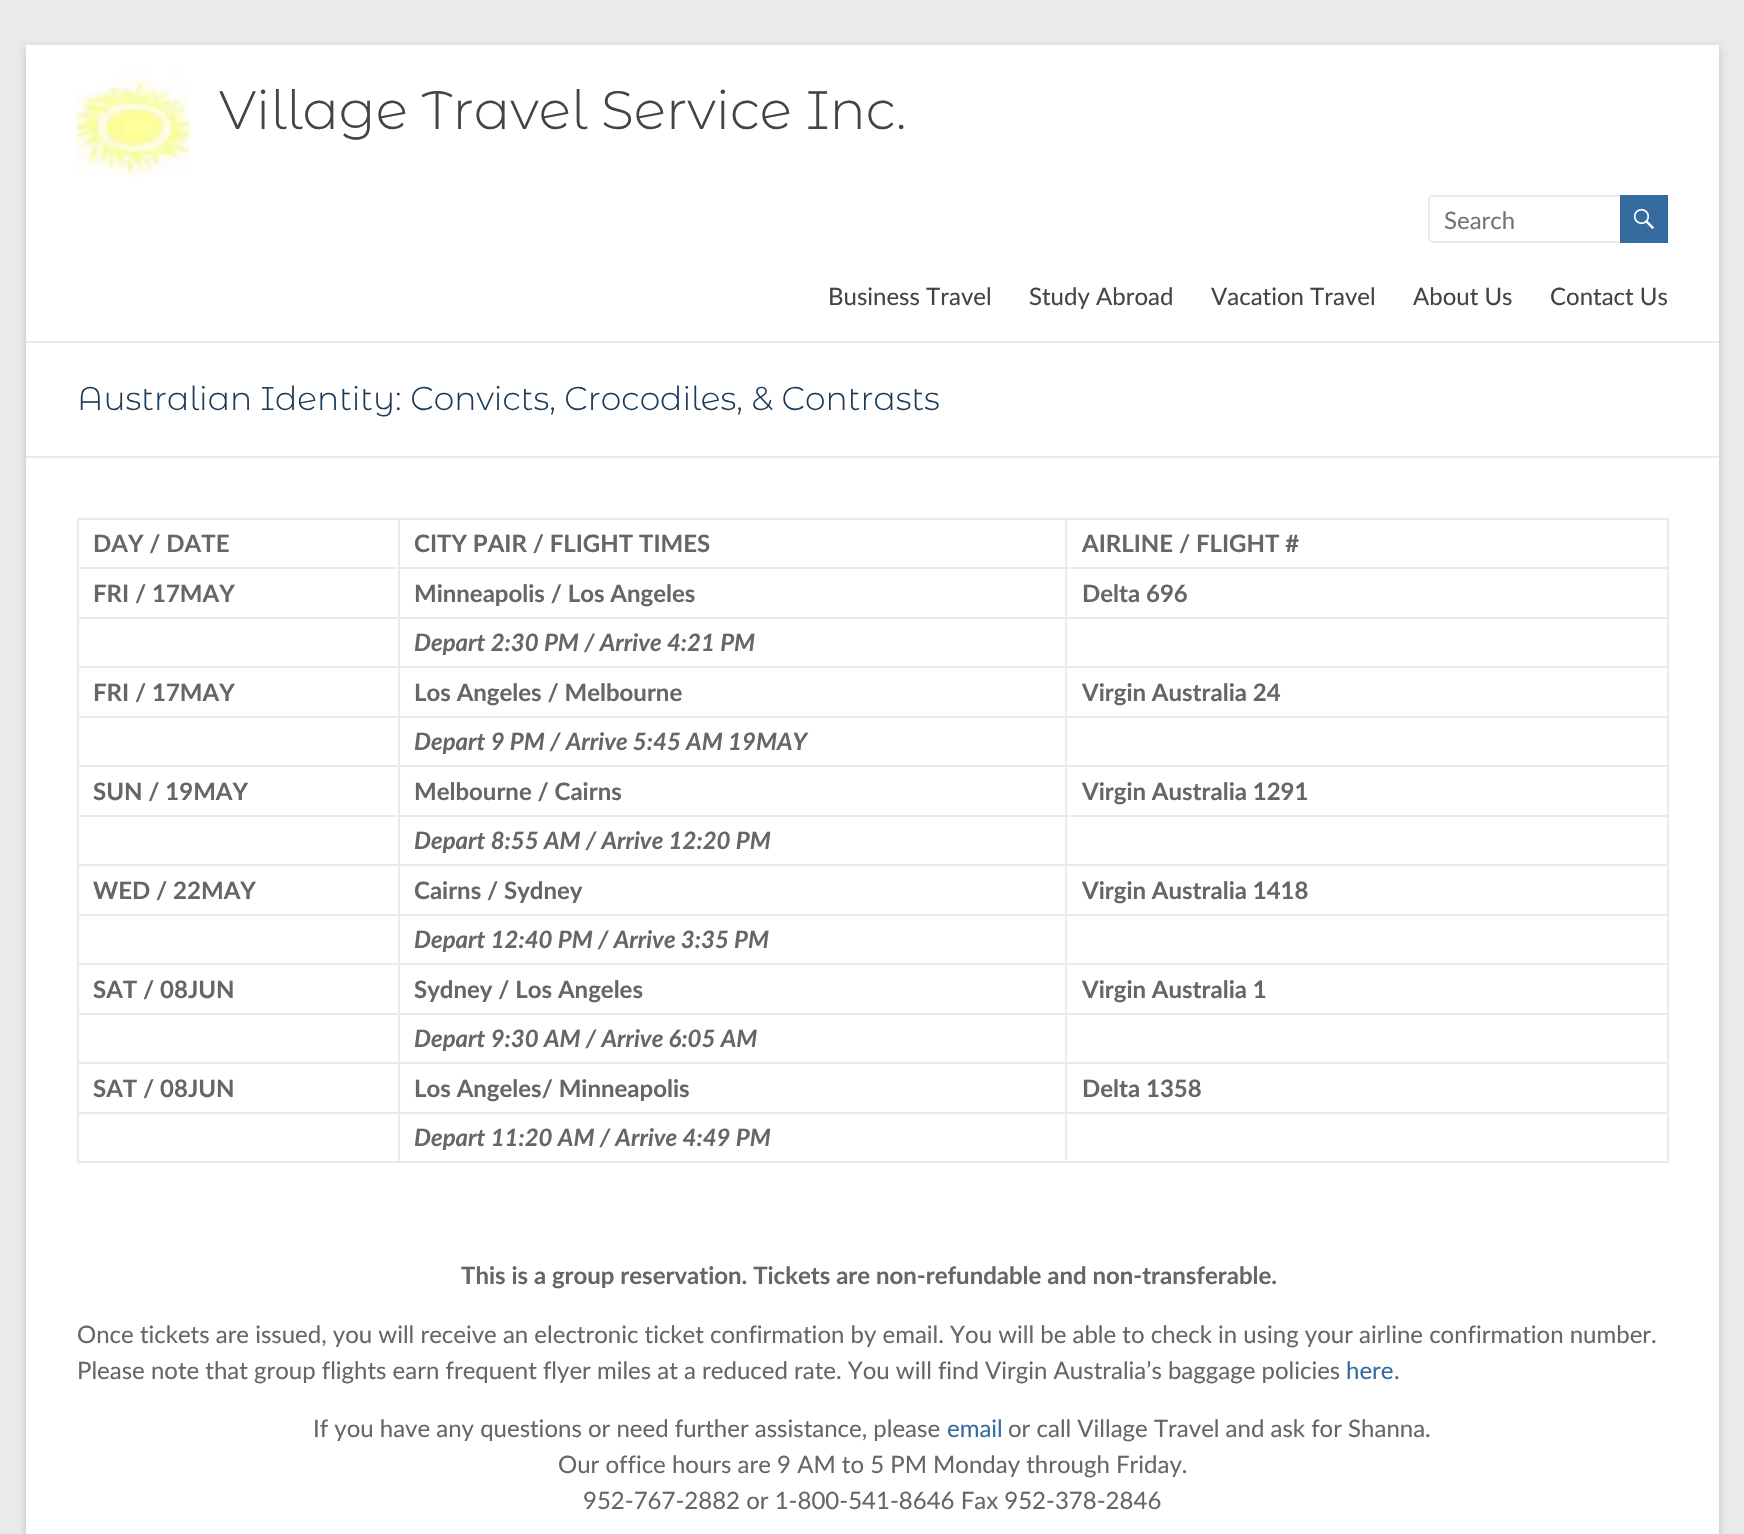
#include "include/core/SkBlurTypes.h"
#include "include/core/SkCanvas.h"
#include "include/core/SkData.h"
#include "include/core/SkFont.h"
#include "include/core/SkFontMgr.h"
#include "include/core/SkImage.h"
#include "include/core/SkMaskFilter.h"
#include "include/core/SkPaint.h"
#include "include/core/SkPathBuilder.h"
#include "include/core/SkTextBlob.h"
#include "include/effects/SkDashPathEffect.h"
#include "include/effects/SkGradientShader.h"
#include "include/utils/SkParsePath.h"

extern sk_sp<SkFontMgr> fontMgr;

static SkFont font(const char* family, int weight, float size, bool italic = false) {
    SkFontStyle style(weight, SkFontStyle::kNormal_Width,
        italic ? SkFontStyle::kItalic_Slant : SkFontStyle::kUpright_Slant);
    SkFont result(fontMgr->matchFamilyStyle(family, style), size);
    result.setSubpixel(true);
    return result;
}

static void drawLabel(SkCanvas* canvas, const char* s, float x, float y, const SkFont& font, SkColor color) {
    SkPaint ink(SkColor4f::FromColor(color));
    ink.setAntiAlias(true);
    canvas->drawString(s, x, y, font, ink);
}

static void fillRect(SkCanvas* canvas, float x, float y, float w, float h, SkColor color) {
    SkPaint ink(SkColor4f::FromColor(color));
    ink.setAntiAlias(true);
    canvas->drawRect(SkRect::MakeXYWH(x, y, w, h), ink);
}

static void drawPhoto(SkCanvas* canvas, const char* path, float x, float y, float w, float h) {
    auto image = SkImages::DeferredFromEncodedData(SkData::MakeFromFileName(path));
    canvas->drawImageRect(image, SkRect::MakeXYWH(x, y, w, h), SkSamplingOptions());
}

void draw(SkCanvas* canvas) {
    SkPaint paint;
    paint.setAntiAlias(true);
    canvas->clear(0xFFEAEAEA);
    paint.setColor(0x4D646464);
    paint.setMaskFilter(SkMaskFilter::MakeBlur(kNormal_SkBlurStyle, 4.5f));
    canvas->drawRect(SkRect::MakeXYWH(26, 48, 1693, 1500), paint);
    paint.setMaskFilter(nullptr);
    fillRect(canvas, 26, 45, 1693, 1489, 0xFFFFFFFF);
    fillRect(canvas, 26, 341, 1693, 2, 0xFFEAEAEA);
    drawPhoto(canvas, "assets/img1.png", 76, 67, 113, 110);
    SkFont font1 = font("Montserrat Alternates", 300, 54);
    drawLabel(canvas, "Village Travel Service Inc.", 219, 129, font1, 0xFF444444);
    paint.setStroke(true);
    paint.setStrokeWidth(2);
    paint.setColor(0xFFEAEAEA);
    canvas->drawRoundRect(SkRect::MakeXYWH(1429, 196, 193, 46), 4, 4, paint);
    SkFont font2 = font("Lato", 400, 24);
    drawLabel(canvas, "Search", 1444, 229, font2, 0xFF757575);
    fillRect(canvas, 1620, 195, 48, 48, 0xFF366BA0);
    drawPhoto(canvas, "assets/img2.png", 1633, 208, 21, 21);
    drawLabel(canvas, "Business Travel", 828, 305, font2, 0xFF444444);
    drawLabel(canvas, "Study Abroad", 1029, 305, font2, 0xFF444444);
    drawLabel(canvas, "Vacation Travel", 1211, 305, font2, 0xFF444444);
    drawLabel(canvas, "About Us", 1413, 305, font2, 0xFF444444);
    drawLabel(canvas, "Contact Us", 1550, 305, font2, 0xFF444444);
    fillRect(canvas, 26, 456, 1693, 2, 0xFFEAEAEA);
    SkFont font3 = font("Montserrat Alternates", 300, 33);
    drawLabel(canvas, "Australian Identity: Convicts, Crocodiles, & Contrasts", 77, 410, font3, 0xFF1E3C59);
    fillRect(canvas, 1065, 518, 603, 2, 0xFFEAEAEA);
    fillRect(canvas, 1065, 567, 603, 2, 0xFFEAEAEA);
    fillRect(canvas, 1065, 617, 603, 2, 0xFFEAEAEA);
    fillRect(canvas, 1065, 666, 603, 2, 0xFFEAEAEA);
    fillRect(canvas, 1065, 716, 603, 2, 0xFFEAEAEA);
    fillRect(canvas, 1065, 765, 603, 2, 0xFFEAEAEA);
    fillRect(canvas, 1065, 815, 603, 2, 0xFFEAEAEA);
    fillRect(canvas, 1065, 864, 603, 2, 0xFFEAEAEA);
    fillRect(canvas, 1065, 914, 603, 2, 0xFFEAEAEA);
    fillRect(canvas, 1065, 963, 603, 2, 0xFFEAEAEA);
    fillRect(canvas, 1065, 1013, 603, 2, 0xFFEAEAEA);
    fillRect(canvas, 1065, 1062, 603, 2, 0xFFEAEAEA);
    fillRect(canvas, 1065, 1112, 603, 2, 0xFFEAEAEA);
    fillRect(canvas, 1667, 1112, 2, 51, 0xFFEAEAEA);
    fillRect(canvas, 1065, 1161, 603, 2, 0xFFEAEAEA);
    fillRect(canvas, 1065, 1112, 2, 51, 0xFFEAEAEA);
    fillRect(canvas, 398, 1112, 669, 2, 0xFFEAEAEA);
    fillRect(canvas, 1065, 1062, 2, 51, 0xFFEAEAEA);
    fillRect(canvas, 398, 1062, 669, 2, 0xFFEAEAEA);
    fillRect(canvas, 1065, 1013, 2, 51, 0xFFEAEAEA);
    fillRect(canvas, 398, 1013, 669, 2, 0xFFEAEAEA);
    fillRect(canvas, 1065, 963, 2, 51, 0xFFEAEAEA);
    fillRect(canvas, 398, 963, 669, 2, 0xFFEAEAEA);
    fillRect(canvas, 1065, 914, 2, 51, 0xFFEAEAEA);
    fillRect(canvas, 398, 914, 669, 2, 0xFFEAEAEA);
    fillRect(canvas, 1065, 864, 2, 51, 0xFFEAEAEA);
    fillRect(canvas, 398, 864, 669, 2, 0xFFEAEAEA);
    fillRect(canvas, 1065, 815, 2, 51, 0xFFEAEAEA);
    fillRect(canvas, 398, 815, 669, 2, 0xFFEAEAEA);
    fillRect(canvas, 1065, 765, 2, 51, 0xFFEAEAEA);
    fillRect(canvas, 398, 765, 669, 2, 0xFFEAEAEA);
    fillRect(canvas, 1065, 716, 2, 51, 0xFFEAEAEA);
    fillRect(canvas, 398, 716, 669, 2, 0xFFEAEAEA);
    fillRect(canvas, 1065, 666, 2, 51, 0xFFEAEAEA);
    fillRect(canvas, 398, 666, 669, 2, 0xFFEAEAEA);
    fillRect(canvas, 1065, 617, 2, 51, 0xFFEAEAEA);
    fillRect(canvas, 398, 617, 669, 2, 0xFFEAEAEA);
    fillRect(canvas, 1065, 567, 2, 51, 0xFFEAEAEA);
    fillRect(canvas, 398, 567, 669, 2, 0xFFEAEAEA);
    fillRect(canvas, 1065, 518, 2, 51, 0xFFEAEAEA);
    fillRect(canvas, 398, 518, 669, 2, 0xFFEAEAEA);
    fillRect(canvas, 398, 1161, 669, 2, 0xFFEAEAEA);
    fillRect(canvas, 398, 1112, 2, 51, 0xFFEAEAEA);
    fillRect(canvas, 77, 1112, 322, 2, 0xFFEAEAEA);
    fillRect(canvas, 398, 1062, 2, 51, 0xFFEAEAEA);
    fillRect(canvas, 77, 1062, 322, 2, 0xFFEAEAEA);
    fillRect(canvas, 398, 1013, 2, 51, 0xFFEAEAEA);
    fillRect(canvas, 77, 1013, 322, 2, 0xFFEAEAEA);
    fillRect(canvas, 398, 963, 2, 51, 0xFFEAEAEA);
    fillRect(canvas, 77, 963, 322, 2, 0xFFEAEAEA);
    fillRect(canvas, 398, 914, 2, 51, 0xFFEAEAEA);
    fillRect(canvas, 77, 914, 322, 2, 0xFFEAEAEA);
    fillRect(canvas, 398, 864, 2, 51, 0xFFEAEAEA);
    fillRect(canvas, 77, 864, 322, 2, 0xFFEAEAEA);
    fillRect(canvas, 398, 815, 2, 51, 0xFFEAEAEA);
    fillRect(canvas, 77, 815, 322, 2, 0xFFEAEAEA);
    fillRect(canvas, 398, 765, 2, 51, 0xFFEAEAEA);
    fillRect(canvas, 77, 765, 322, 2, 0xFFEAEAEA);
    fillRect(canvas, 398, 716, 2, 51, 0xFFEAEAEA);
    fillRect(canvas, 77, 716, 322, 2, 0xFFEAEAEA);
    fillRect(canvas, 398, 666, 2, 51, 0xFFEAEAEA);
    fillRect(canvas, 77, 666, 322, 2, 0xFFEAEAEA);
    fillRect(canvas, 398, 617, 2, 51, 0xFFEAEAEA);
    fillRect(canvas, 77, 617, 322, 2, 0xFFEAEAEA);
    fillRect(canvas, 398, 567, 2, 51, 0xFFEAEAEA);
    fillRect(canvas, 77, 567, 322, 2, 0xFFEAEAEA);
    fillRect(canvas, 398, 518, 2, 51, 0xFFEAEAEA);
    fillRect(canvas, 77, 518, 322, 2, 0xFFEAEAEA);
    fillRect(canvas, 77, 1161, 322, 2, 0xFFEAEAEA);
    fillRect(canvas, 77, 1112, 2, 51, 0xFFEAEAEA);
    fillRect(canvas, 77, 1062, 2, 51, 0xFFEAEAEA);
    fillRect(canvas, 77, 1013, 2, 51, 0xFFEAEAEA);
    fillRect(canvas, 77, 963, 2, 51, 0xFFEAEAEA);
    fillRect(canvas, 77, 914, 2, 51, 0xFFEAEAEA);
    fillRect(canvas, 77, 864, 2, 51, 0xFFEAEAEA);
    fillRect(canvas, 77, 815, 2, 51, 0xFFEAEAEA);
    fillRect(canvas, 77, 765, 2, 51, 0xFFEAEAEA);
    fillRect(canvas, 77, 716, 2, 51, 0xFFEAEAEA);
    fillRect(canvas, 77, 666, 2, 51, 0xFFEAEAEA);
    fillRect(canvas, 77, 617, 2, 51, 0xFFEAEAEA);
    fillRect(canvas, 77, 567, 2, 51, 0xFFEAEAEA);
    fillRect(canvas, 77, 518, 2, 51, 0xFFEAEAEA);
    SkFont font4 = font("Lato", 700, 24);
    drawLabel(canvas, "DAY / DATE", 93, 552, font4, 0xFF666666);
    drawLabel(canvas, "CITY PAIR / FLIGHT TIMES", 414, 552, font4, 0xFF666666);
    fillRect(canvas, 1667, 1062, 2, 51, 0xFFEAEAEA);
    fillRect(canvas, 1667, 1013, 2, 51, 0xFFEAEAEA);
    fillRect(canvas, 1667, 963, 2, 51, 0xFFEAEAEA);
    fillRect(canvas, 1667, 914, 2, 51, 0xFFEAEAEA);
    fillRect(canvas, 1667, 864, 2, 51, 0xFFEAEAEA);
    fillRect(canvas, 1667, 815, 2, 51, 0xFFEAEAEA);
    fillRect(canvas, 1667, 765, 2, 51, 0xFFEAEAEA);
    fillRect(canvas, 1667, 716, 2, 51, 0xFFEAEAEA);
    fillRect(canvas, 1667, 666, 2, 51, 0xFFEAEAEA);
    fillRect(canvas, 1667, 617, 2, 51, 0xFFEAEAEA);
    fillRect(canvas, 1667, 567, 2, 51, 0xFFEAEAEA);
    fillRect(canvas, 1667, 518, 2, 51, 0xFFEAEAEA);
    drawLabel(canvas, "AIRLINE / FLIGHT #", 1082, 552, font4, 0xFF666666);
    drawLabel(canvas, "FRI / 17MAY", 93, 602, font4, 0xFF666666);
    drawLabel(canvas, "Minneapolis / Los Angeles", 414, 602, font4, 0xFF666666);
    drawLabel(canvas, "Delta 696", 1082, 602, font4, 0xFF666666);
    SkFont font5 = font("Lato", 700, 24, true);
    drawLabel(canvas, "Depart 2:30 PM / Arrive 4:21 PM", 414, 651, font5, 0xFF666666);
    drawLabel(canvas, "FRI / 17MAY", 93, 701, font4, 0xFF666666);
    drawLabel(canvas, "Los Angeles / Melbourne", 414, 701, font4, 0xFF666666);
    drawLabel(canvas, "Virgin Australia 24", 1082, 701, font4, 0xFF666666);
    drawLabel(canvas, "Depart 9 PM / Arrive 5:45 AM 19MAY", 414, 750, font5, 0xFF666666);
    drawLabel(canvas, "SUN / 19MAY", 93, 800, font4, 0xFF666666);
    drawLabel(canvas, "Melbourne / Cairns", 414, 800, font4, 0xFF666666);
    drawLabel(canvas, "Virgin Australia 1291", 1082, 800, font4, 0xFF666666);
    drawLabel(canvas, "Depart 8:55 AM / Arrive 12:20 PM", 414, 849, font5, 0xFF666666);
    drawLabel(canvas, "WED / 22MAY", 93, 899, font4, 0xFF666666);
    drawLabel(canvas, "Cairns / Sydney", 414, 899, font4, 0xFF666666);
    drawLabel(canvas, "Virgin Australia 1418", 1082, 899, font4, 0xFF666666);
    drawLabel(canvas, "Depart 12:40 PM / Arrive 3:35 PM", 414, 948, font5, 0xFF666666);
    drawLabel(canvas, "SAT / 08JUN", 93, 998, font4, 0xFF666666);
    drawLabel(canvas, "Sydney / Los Angeles", 414, 998, font4, 0xFF666666);
    drawLabel(canvas, "Virgin Australia 1", 1082, 998, font4, 0xFF666666);
    drawLabel(canvas, "Depart 9:30 AM / Arrive 6:05 AM", 414, 1047, font5, 0xFF666666);
    drawLabel(canvas, "SAT / 08JUN", 93, 1097, font4, 0xFF666666);
    drawLabel(canvas, "Los Angeles/ Minneapolis", 414, 1097, font4, 0xFF666666);
    drawLabel(canvas, "Delta 1358", 1082, 1097, font4, 0xFF666666);
    drawLabel(canvas, "Depart 11:20 AM / Arrive 4:49 PM", 414, 1146, font5, 0xFF666666);
    drawLabel(canvas, "This is a group reservation. Tickets are non-refundable and non-transferable.", 461, 1284, font4, 0xFF666666);
    drawLabel(canvas, "Once tickets are issued, you will receive an electronic ticket confirmation by email. You will be able to check in using your airline confirmation number.", 77, 1343, font2, 0xFF666666);
    drawLabel(canvas, "Please note that group flights earn frequent flyer miles at a reduced rate. You will find Virgin Australia’s baggage policies", 77, 1379, font2, 0xFF666666);
    drawLabel(canvas, "here", 1346, 1379, font2, 0xFF366BA0);
    drawLabel(canvas, ".", 1394, 1379, font2, 0xFF666666);
    drawLabel(canvas, "If you have any questions or need further assistance, please", 313, 1437, font2, 0xFF666666);
    drawLabel(canvas, "email", 947, 1437, font2, 0xFF366BA0);
    drawLabel(canvas, "or call Village Travel and ask for Shanna.", 1008, 1437, font2, 0xFF666666);
    drawLabel(canvas, "Our office hours are 9 AM to 5 PM Monday through Friday.", 558, 1473, font2, 0xFF666666);
    drawLabel(canvas, "952-767-2882 or 1-800-541-8646 Fax 952-378-2846", 583, 1509, font2, 0xFF666666);
}
